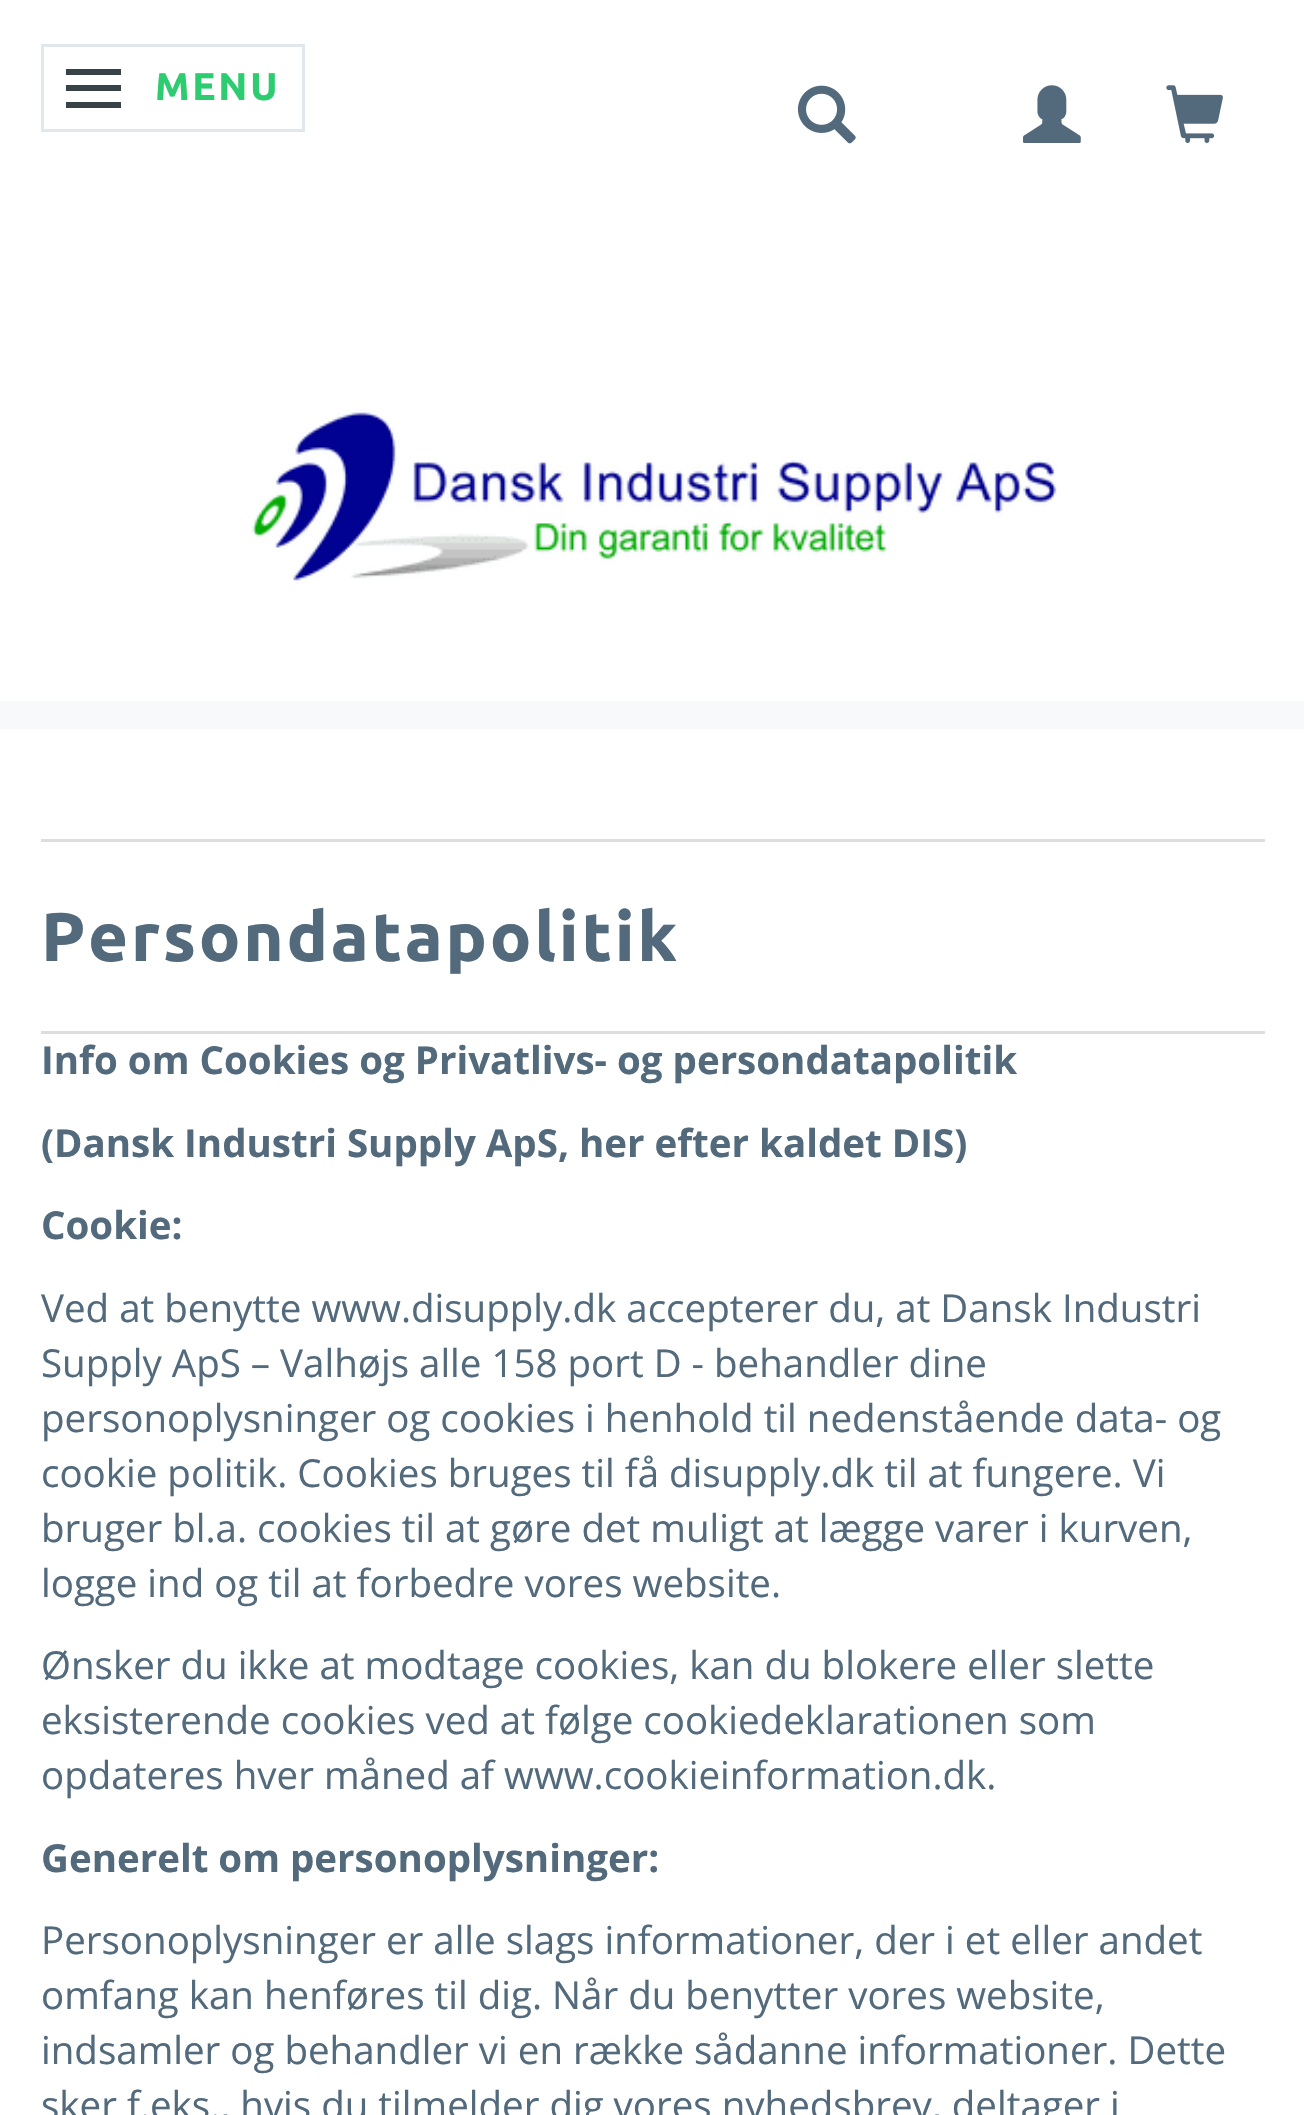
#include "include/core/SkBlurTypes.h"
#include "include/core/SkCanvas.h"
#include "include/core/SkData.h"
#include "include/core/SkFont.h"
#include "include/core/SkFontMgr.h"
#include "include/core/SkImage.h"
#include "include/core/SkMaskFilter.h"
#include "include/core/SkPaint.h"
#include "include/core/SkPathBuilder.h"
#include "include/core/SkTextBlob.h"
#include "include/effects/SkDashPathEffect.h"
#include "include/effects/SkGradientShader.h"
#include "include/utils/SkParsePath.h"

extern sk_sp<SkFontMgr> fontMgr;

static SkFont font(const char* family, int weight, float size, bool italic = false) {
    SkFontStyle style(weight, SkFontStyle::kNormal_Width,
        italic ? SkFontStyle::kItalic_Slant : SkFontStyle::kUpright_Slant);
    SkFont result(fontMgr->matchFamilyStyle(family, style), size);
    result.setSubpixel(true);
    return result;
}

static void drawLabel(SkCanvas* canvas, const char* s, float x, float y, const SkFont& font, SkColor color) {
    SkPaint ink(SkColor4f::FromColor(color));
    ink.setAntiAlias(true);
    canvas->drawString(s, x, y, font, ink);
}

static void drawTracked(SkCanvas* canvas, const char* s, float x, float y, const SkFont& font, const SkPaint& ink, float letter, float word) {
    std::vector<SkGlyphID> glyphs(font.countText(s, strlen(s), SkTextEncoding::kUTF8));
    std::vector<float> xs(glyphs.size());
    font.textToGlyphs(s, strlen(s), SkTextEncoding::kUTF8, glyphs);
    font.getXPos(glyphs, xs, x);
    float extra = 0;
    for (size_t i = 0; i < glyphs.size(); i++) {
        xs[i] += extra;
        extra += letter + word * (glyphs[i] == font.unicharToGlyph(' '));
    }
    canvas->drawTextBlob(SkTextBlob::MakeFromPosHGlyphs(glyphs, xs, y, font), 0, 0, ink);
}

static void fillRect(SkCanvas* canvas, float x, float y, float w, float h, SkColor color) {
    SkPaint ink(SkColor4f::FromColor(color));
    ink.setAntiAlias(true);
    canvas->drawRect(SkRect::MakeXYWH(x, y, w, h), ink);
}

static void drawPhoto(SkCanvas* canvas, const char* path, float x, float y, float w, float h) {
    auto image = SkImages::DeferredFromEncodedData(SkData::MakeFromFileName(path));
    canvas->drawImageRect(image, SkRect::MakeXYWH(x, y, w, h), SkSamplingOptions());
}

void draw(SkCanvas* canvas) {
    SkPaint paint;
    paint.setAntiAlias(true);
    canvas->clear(0xFFFFFFFF);
    paint.setStroke(true);
    paint.setStrokeWidth(3);
    paint.setColor(0xFFE0E7ED);
    canvas->drawRect(SkRect::MakeXYWH(42.5f, 45.5f, 261, 85), paint);
    fillRect(canvas, 66, 69, 55, 6, 0xFF384249);
    fillRect(canvas, 66, 85, 55, 6, 0xFF384249);
    fillRect(canvas, 66, 102, 55, 6, 0xFF384249);
    SkFont font1 = font("Ubuntu", 700, 38.5f);
    paint.setStroke(false);
    paint.setColor(0xFF2DCC70);
    drawTracked(canvas, "MENU", 155, 100, font1, paint, 2.75f, 0);
    drawPhoto(canvas, "assets/img1.png", 797, 85, 59, 59);
    drawPhoto(canvas, "assets/img2.png", 1023, 85, 58, 58);
    drawPhoto(canvas, "assets/img3.png", 1166, 85, 57, 58);
    drawPhoto(canvas, "assets/img4.png", 251, 409, 806, 175);
    fillRect(canvas, 0, 701, 1304, 28, 0xFFF7F9FB);
    fillRect(canvas, 41, 839, 1224, 3, 0xFFDDDDDD);
    fillRect(canvas, 41, 1031, 1224, 3, 0xFFDDDDDD);
    SkFont font2 = font("Ubuntu", 700, 68.75f);
    paint.setColor(0xFF526A7C);
    drawTracked(canvas, "Persondatapolitik", 41, 961, font2, paint, 2.75f, 0);
    SkFont font3 = font("Open Sans", 700, 38.5f);
    drawLabel(canvas, "Info om Cookies og Privatlivs- og persondatapolitik", 41, 1074, font3, 0xFF526A7C);
    drawLabel(canvas, "(Dansk Industri Supply ApS, her efter kaldet DIS)", 41, 1157, font3, 0xFF526A7C);
    drawLabel(canvas, "Cookie:", 41, 1239, font3, 0xFF526A7C);
    SkFont font4 = font("Open Sans", 400, 38.5f);
    drawLabel(canvas, "Ved at benytte www.disupply.dk accepterer du, at Dansk Industri", 41, 1322, font4, 0xFF526A7C);
    drawLabel(canvas, "Supply ApS – Valhøjs alle 158 port D - behandler dine", 41, 1377, font4, 0xFF526A7C);
    drawLabel(canvas, "personoplysninger og cookies i henhold til nedenstående data- og", 41, 1432, font4, 0xFF526A7C);
    drawLabel(canvas, "cookie politik. Cookies bruges til få disupply.dk til at fungere. Vi", 41, 1487, font4, 0xFF526A7C);
    drawLabel(canvas, "bruger bl.a. cookies til at gøre det muligt at lægge varer i kurven,", 41, 1542, font4, 0xFF526A7C);
    drawLabel(canvas, "logge ind og til at forbedre vores website.", 41, 1597, font4, 0xFF526A7C);
    drawLabel(canvas, "Ønsker du ikke at modtage cookies, kan du blokere eller slette", 41, 1679, font4, 0xFF526A7C);
    drawLabel(canvas, "eksisterende cookies ved at følge cookiedeklarationen som", 41, 1734, font4, 0xFF526A7C);
    drawLabel(canvas, "opdateres hver måned af www.cookieinformation.dk.", 41, 1789, font4, 0xFF526A7C);
    drawLabel(canvas, "Generelt om personoplysninger:", 41, 1872, font3, 0xFF526A7C);
    drawLabel(canvas, "Personoplysninger er alle slags informationer, der i et eller andet", 41, 1954, font4, 0xFF526A7C);
    drawLabel(canvas, "omfang kan henføres til dig. Når du benytter vores website,", 41, 2009, font4, 0xFF526A7C);
    drawLabel(canvas, "indsamler og behandler vi en række sådanne informationer. Dette", 41, 2064, font4, 0xFF526A7C);
    drawLabel(canvas, "sker f.eks., hvis du tilmelder dig vores nyhedsbrev, deltager i", 41, 2119, font4, 0xFF526A7C);
}
